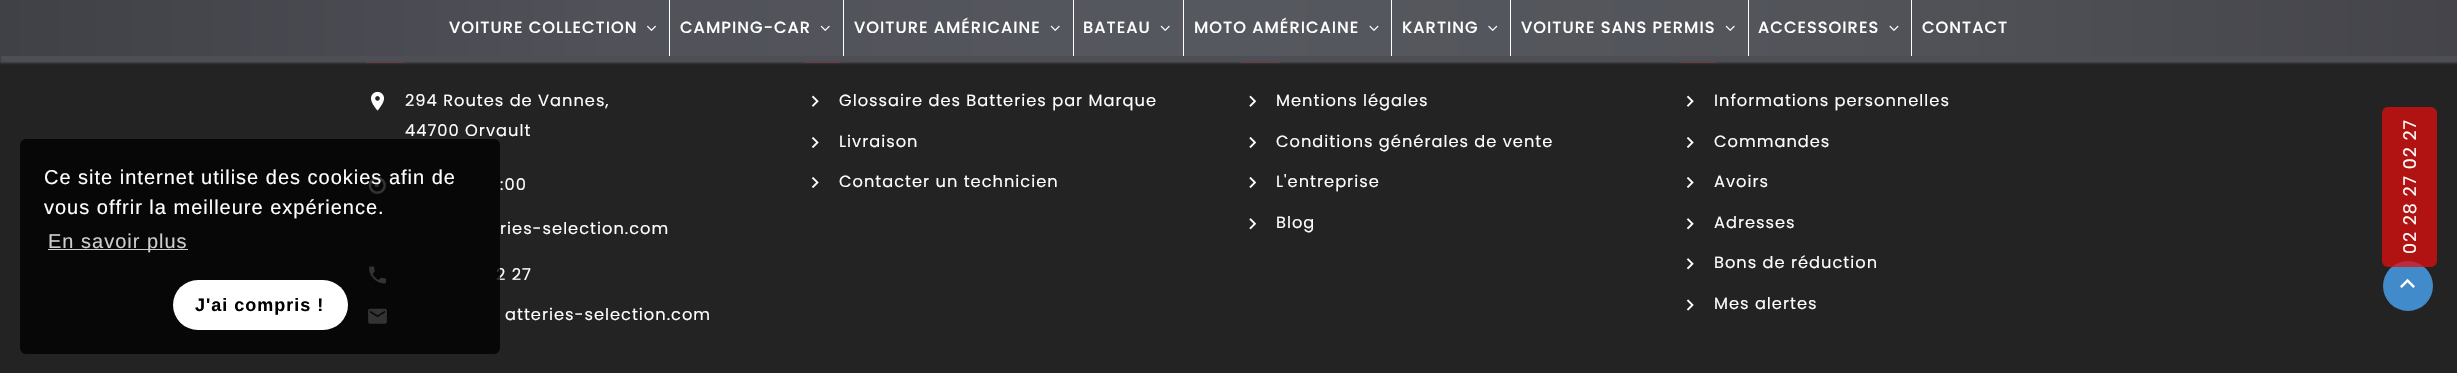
#include "include/core/SkBlurTypes.h"
#include "include/core/SkCanvas.h"
#include "include/core/SkData.h"
#include "include/core/SkFont.h"
#include "include/core/SkFontMgr.h"
#include "include/core/SkImage.h"
#include "include/core/SkMaskFilter.h"
#include "include/core/SkPaint.h"
#include "include/core/SkPathBuilder.h"
#include "include/core/SkTextBlob.h"
#include "include/effects/SkDashPathEffect.h"
#include "include/effects/SkGradientShader.h"
#include "include/utils/SkParsePath.h"

extern sk_sp<SkFontMgr> fontMgr;

static SkFont font(const char* family, int weight, float size, bool italic = false) {
    SkFontStyle style(weight, SkFontStyle::kNormal_Width,
        italic ? SkFontStyle::kItalic_Slant : SkFontStyle::kUpright_Slant);
    SkFont result(fontMgr->matchFamilyStyle(family, style), size);
    result.setSubpixel(true);
    return result;
}

static void drawTracked(SkCanvas* canvas, const char* s, float x, float y, const SkFont& font, const SkPaint& ink, float letter, float word) {
    std::vector<SkGlyphID> glyphs(font.countText(s, strlen(s), SkTextEncoding::kUTF8));
    std::vector<float> xs(glyphs.size());
    font.textToGlyphs(s, strlen(s), SkTextEncoding::kUTF8, glyphs);
    font.getXPos(glyphs, xs, x);
    float extra = 0;
    for (size_t i = 0; i < glyphs.size(); i++) {
        xs[i] += extra;
        extra += letter + word * (glyphs[i] == font.unicharToGlyph(' '));
    }
    canvas->drawTextBlob(SkTextBlob::MakeFromPosHGlyphs(glyphs, xs, y, font), 0, 0, ink);
}

static void fillRect(SkCanvas* canvas, float x, float y, float w, float h, SkColor color) {
    SkPaint ink(SkColor4f::FromColor(color));
    ink.setAntiAlias(true);
    canvas->drawRect(SkRect::MakeXYWH(x, y, w, h), ink);
}

static void fillRRect(SkCanvas* canvas, float x, float y, float w, float h, float radius, SkColor color) {
    SkPaint ink(SkColor4f::FromColor(color));
    ink.setAntiAlias(true);
    canvas->drawRoundRect(SkRect::MakeXYWH(x, y, w, h), radius, radius, ink);
}

static void drawPhoto(SkCanvas* canvas, const char* path, float x, float y, float w, float h) {
    auto image = SkImages::DeferredFromEncodedData(SkData::MakeFromFileName(path));
    canvas->drawImageRect(image, SkRect::MakeXYWH(x, y, w, h), SkSamplingOptions());
}

static SkPath parsePath(const char* data, bool evenOdd = false) {
    SkPath result = *SkParsePath::FromSVGString(data);
    if (evenOdd) result.setFillType(SkPathFillType::kEvenOdd);
    return result;
}

void draw(SkCanvas* canvas) {
    SkPaint paint;
    paint.setAntiAlias(true);
    canvas->clear(0xFF232323);
    drawPhoto(canvas, "assets/img10.png", 368, 176, 18, 18);
    drawPhoto(canvas, "assets/img11.png", 369, 266, 17, 18);
    SkFont font1 = font("Poppins", 400, 16.25f);
    paint.setColor(0xFFFFFFFF);
    drawTracked(canvas, "2 27", 496, 280, font1, paint, 1, 0);
    drawPhoto(canvas, "assets/img12.png", 368, 308, 19, 16);
    fillRRect(canvas, 20, 139, 480, 215, 6, 0xCC000000);
    SkFont font2 = font("Liberation Sans", 400, 20);
    drawTracked(canvas, "Ce site internet utilise des cookies afin de", 44, 184, font2, paint, 1, 0);
    drawTracked(canvas, "vous offrir la meilleure expérience.", 44, 214, font2, paint, 1, 0);
    fillRect(canvas, 48, 249, 140, 1, 0xFFCDCDCD);
    paint.setColor(0xFFCDCDCD);
    drawTracked(canvas, "En savoir plus", 48, 248, font2, paint, 1, 0);
    fillRRect(canvas, 173, 280, 175, 50, 25, 0xFFFFFFFF);
    SkFont font3 = font("Liberation Sans", 700, 18);
    paint.setColor(0xFF000000);
    drawTracked(canvas, "J'ai compris !", 195, 311, font3, paint, 1, 0);
    fillRect(canvas, 366, 61, 38, 2, 0xFF971B1E);
    fillRect(canvas, 804, 61, 37, 2, 0xFF971B1E);
    fillRect(canvas, 1241, 61, 38, 2, 0xFF971B1E);
    fillRect(canvas, 1679, 61, 37, 2, 0xFF971B1E);
    paint.setColor(0xFF4D4F55);
    paint.setMaskFilter(SkMaskFilter::MakeBlur(kNormal_SkBlurStyle, 1));
    canvas->drawRect(SkRect::MakeXYWH(0, 6, 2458, 57), paint);
    paint.setMaskFilter(nullptr);
    {
        const SkColor colors[] = {0xFF404146, 0xFF505159, 0xFF56585F, 0xFF52545A, 0xFF44444A};
        const float stops[] = {0, 0.25f, 0.5f, 0.75f, 1};
        const SkPoint ends[] = {{0, 28}, {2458, 28}};
        paint.setShader(SkGradientShader::MakeLinear(ends, colors, stops, 5, SkTileMode::kClamp));
        paint.setAlpha(255);
    }
    canvas->drawRect(SkRect::MakeXYWH(0, 0, 2457, 56), paint);
    SkFont font4 = font("Poppins", 500, 16.25f);
    paint.setShader(nullptr);
    paint.setColor(0xFFFFFFFF);
    drawTracked(canvas, "VOITURE COLLECTION", 449, 33, font4, paint, 1, 0);
    drawPhoto(canvas, "assets/img1.png", 647, 25, 9, 6);
    fillRect(canvas, 669, 0, 1, 56, 0xFFFFFFFF);
    drawTracked(canvas, "CAMPING-CAR", 680, 33, font4, paint, 1, 0);
    drawPhoto(canvas, "assets/img2.png", 820, 25, 10, 6);
    fillRect(canvas, 843, 0, 1, 56, 0xFFFFFFFF);
    drawTracked(canvas, "VOITURE AMÉRICAINE", 854, 33, font4, paint, 1, 0);
    drawPhoto(canvas, "assets/img3.png", 1050, 25, 10, 6);
    fillRect(canvas, 1073, 0, 1, 56, 0xFFFFFFFF);
    drawTracked(canvas, "BATEAU", 1083, 33, font4, paint, 1, 0);
    drawPhoto(canvas, "assets/img4.png", 1160, 25, 10, 6);
    fillRect(canvas, 1183, 0, 1, 56, 0xFFFFFFFF);
    drawTracked(canvas, "MOTO AMÉRICAINE", 1194, 33, font4, paint, 1, 0);
    drawPhoto(canvas, "assets/img5.png", 1369, 25, 10, 6);
    fillRect(canvas, 1391, 0, 1, 56, 0xFFFFFFFF);
    drawTracked(canvas, "KARTING", 1402, 33, font4, paint, 1, 0);
    drawPhoto(canvas, "assets/img6.png", 1488, 25, 10, 6);
    fillRect(canvas, 1510, 0, 1, 56, 0xFFFFFFFF);
    drawTracked(canvas, "VOITURE SANS PERMIS", 1521, 33, font4, paint, 1, 0);
    drawPhoto(canvas, "assets/img7.png", 1725, 25, 10, 6);
    fillRect(canvas, 1748, 0, 1, 56, 0xFFFFFFFF);
    drawTracked(canvas, "ACCESSOIRES", 1758, 33, font4, paint, 1, 0);
    drawPhoto(canvas, "assets/img8.png", 1889, 25, 10, 6);
    fillRect(canvas, 1911, 0, 1, 56, 0xFFFFFFFF);
    drawTracked(canvas, "CONTACT", 1922, 33, font4, paint, 1, 0);
    drawPhoto(canvas, "assets/img9.png", 371, 91, 13, 20);
    drawTracked(canvas, "294 Routes de Vannes,", 405, 106, font1, paint, 1, 0);
    drawTracked(canvas, "44700 Orvault", 405, 136, font1, paint, 1, 0);
    drawTracked(canvas, ":00", 500, 190, font1, paint, 1, 0);
    drawTracked(canvas, "ries-selection.com", 500, 234, font1, paint, 1, 0);
    drawTracked(canvas, "atteries-selection.com", 505, 320, font1, paint, 1, 0);
    drawPhoto(canvas, "assets/img13.png", 811, 95, 8, 12);
    drawTracked(canvas, "Glossaire des Batteries par Marque", 839, 106, font1, paint, 1, 0);
    drawPhoto(canvas, "assets/img14.png", 811, 137, 8, 11);
    drawTracked(canvas, "Livraison", 839, 147, font1, paint, 1, 0);
    drawPhoto(canvas, "assets/img14.png", 811, 177, 8, 11);
    drawTracked(canvas, "Contacter un technicien", 839, 187, font1, paint, 1, 0);
    drawPhoto(canvas, "assets/img15.png", 1249, 95, 8, 12);
    drawTracked(canvas, "Mentions légales", 1276, 106, font1, paint, 1, 0);
    drawPhoto(canvas, "assets/img16.png", 1249, 137, 8, 11);
    drawTracked(canvas, "Conditions générales de vente", 1276, 147, font1, paint, 1, 0);
    drawPhoto(canvas, "assets/img16.png", 1249, 177, 8, 11);
    drawTracked(canvas, "L'entreprise", 1276, 187, font1, paint, 1, 0);
    drawPhoto(canvas, "assets/img17.png", 1249, 218, 8, 12);
    drawTracked(canvas, "Blog", 1276, 228, font1, paint, 1, 0);
    drawPhoto(canvas, "assets/img13.png", 1686, 95, 8, 12);
    drawTracked(canvas, "Informations personnelles", 1714, 106, font1, paint, 1, 0);
    drawPhoto(canvas, "assets/img14.png", 1686, 137, 8, 11);
    drawTracked(canvas, "Commandes", 1714, 147, font1, paint, 1, 0);
    drawPhoto(canvas, "assets/img14.png", 1686, 177, 8, 11);
    drawTracked(canvas, "Avoirs", 1714, 187, font1, paint, 1, 0);
    drawPhoto(canvas, "assets/img18.png", 1686, 218, 8, 12);
    drawTracked(canvas, "Adresses", 1714, 228, font1, paint, 1, 0);
    drawPhoto(canvas, "assets/img18.png", 1686, 258, 8, 12);
    drawTracked(canvas, "Bons de réduction", 1714, 268, font1, paint, 1, 0);
    drawPhoto(canvas, "assets/img19.png", 1686, 299, 8, 12);
    drawTracked(canvas, "Mes alertes", 1714, 309, font1, paint, 1, 0);
    paint.setColor(0xFF428BCA);
    canvas->drawCircle(2408, 286, 25, paint);
    paint.setColor(0xBFE00E0E);
    canvas->drawPath(parsePath("M2382 261V113C2382 110 2385 107 2388 107H2431C2434 107 2437 110 2437 113V261C2437 264 2434 267 2431 267H2388C2385 267 2382 264 2382 261Z"), paint);
    SkFont font5 = font("Poppins", 400, 17.5f);
    paint.setColor(0xFFFFFFFF);
    canvas->save();
    canvas->rotate(-90, 2416, 254);
    drawTracked(canvas, "02 28 27 02 27", 2416, 254, font5, paint, 1, 0);
    canvas->restore();
    drawPhoto(canvas, "assets/img20.png", 2400, 278, 15, 10);
}
